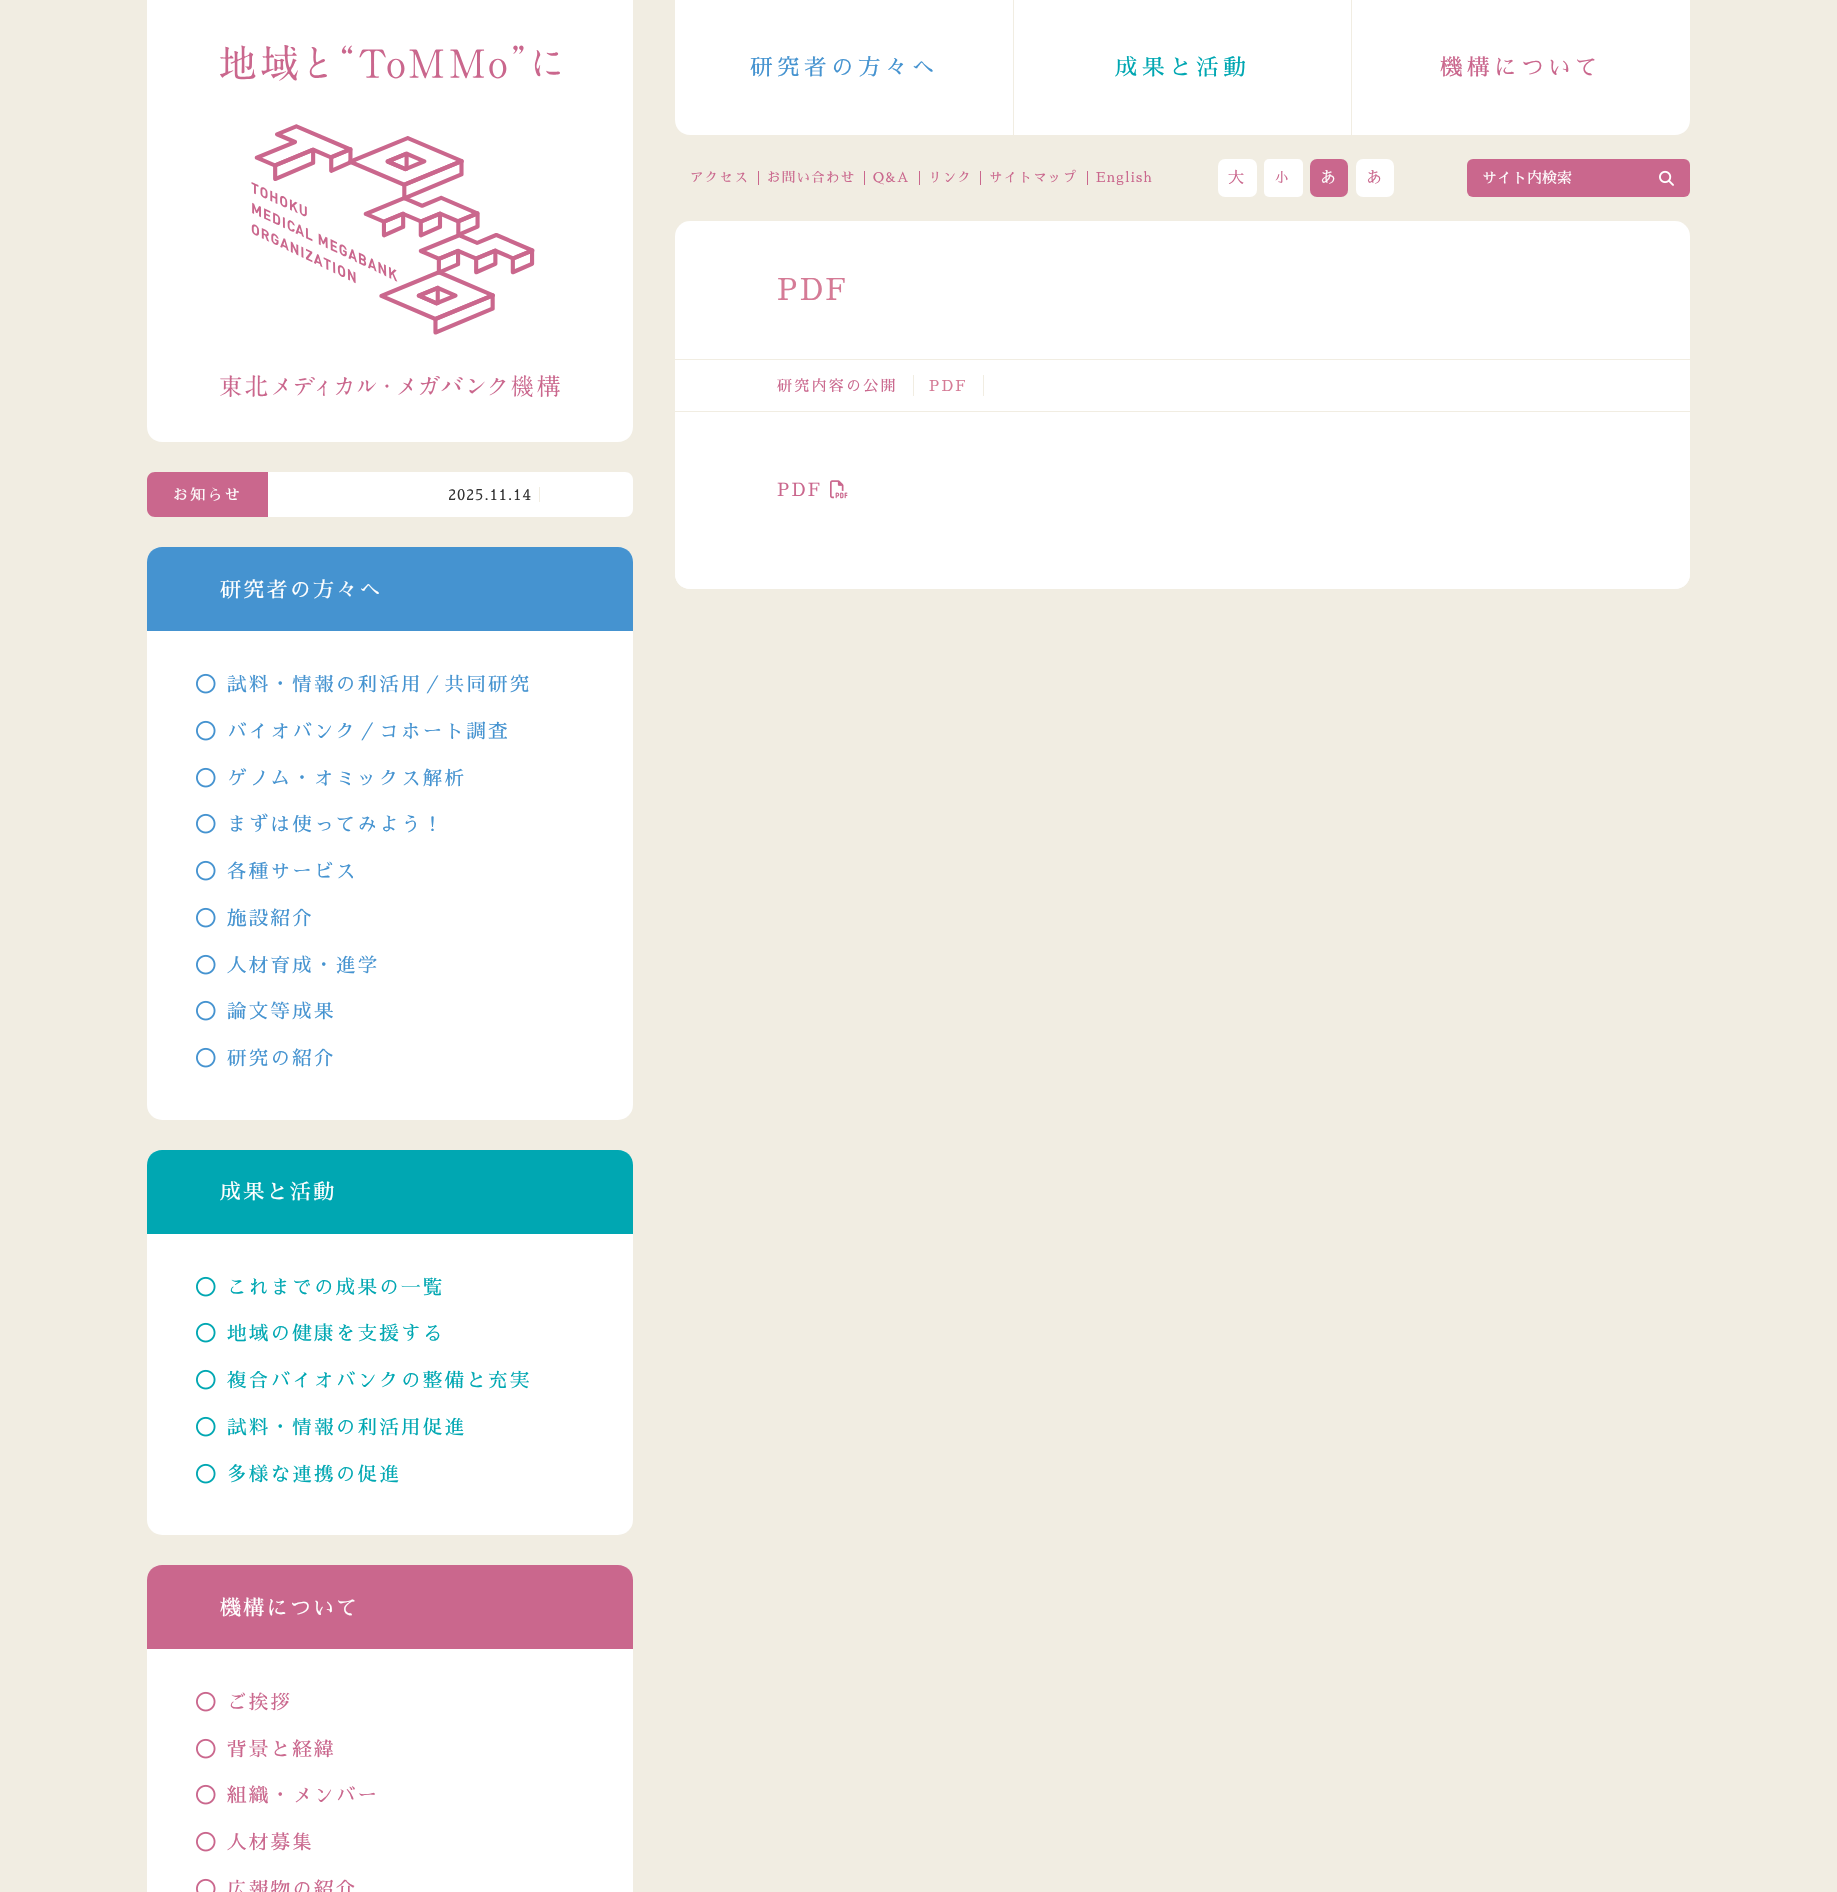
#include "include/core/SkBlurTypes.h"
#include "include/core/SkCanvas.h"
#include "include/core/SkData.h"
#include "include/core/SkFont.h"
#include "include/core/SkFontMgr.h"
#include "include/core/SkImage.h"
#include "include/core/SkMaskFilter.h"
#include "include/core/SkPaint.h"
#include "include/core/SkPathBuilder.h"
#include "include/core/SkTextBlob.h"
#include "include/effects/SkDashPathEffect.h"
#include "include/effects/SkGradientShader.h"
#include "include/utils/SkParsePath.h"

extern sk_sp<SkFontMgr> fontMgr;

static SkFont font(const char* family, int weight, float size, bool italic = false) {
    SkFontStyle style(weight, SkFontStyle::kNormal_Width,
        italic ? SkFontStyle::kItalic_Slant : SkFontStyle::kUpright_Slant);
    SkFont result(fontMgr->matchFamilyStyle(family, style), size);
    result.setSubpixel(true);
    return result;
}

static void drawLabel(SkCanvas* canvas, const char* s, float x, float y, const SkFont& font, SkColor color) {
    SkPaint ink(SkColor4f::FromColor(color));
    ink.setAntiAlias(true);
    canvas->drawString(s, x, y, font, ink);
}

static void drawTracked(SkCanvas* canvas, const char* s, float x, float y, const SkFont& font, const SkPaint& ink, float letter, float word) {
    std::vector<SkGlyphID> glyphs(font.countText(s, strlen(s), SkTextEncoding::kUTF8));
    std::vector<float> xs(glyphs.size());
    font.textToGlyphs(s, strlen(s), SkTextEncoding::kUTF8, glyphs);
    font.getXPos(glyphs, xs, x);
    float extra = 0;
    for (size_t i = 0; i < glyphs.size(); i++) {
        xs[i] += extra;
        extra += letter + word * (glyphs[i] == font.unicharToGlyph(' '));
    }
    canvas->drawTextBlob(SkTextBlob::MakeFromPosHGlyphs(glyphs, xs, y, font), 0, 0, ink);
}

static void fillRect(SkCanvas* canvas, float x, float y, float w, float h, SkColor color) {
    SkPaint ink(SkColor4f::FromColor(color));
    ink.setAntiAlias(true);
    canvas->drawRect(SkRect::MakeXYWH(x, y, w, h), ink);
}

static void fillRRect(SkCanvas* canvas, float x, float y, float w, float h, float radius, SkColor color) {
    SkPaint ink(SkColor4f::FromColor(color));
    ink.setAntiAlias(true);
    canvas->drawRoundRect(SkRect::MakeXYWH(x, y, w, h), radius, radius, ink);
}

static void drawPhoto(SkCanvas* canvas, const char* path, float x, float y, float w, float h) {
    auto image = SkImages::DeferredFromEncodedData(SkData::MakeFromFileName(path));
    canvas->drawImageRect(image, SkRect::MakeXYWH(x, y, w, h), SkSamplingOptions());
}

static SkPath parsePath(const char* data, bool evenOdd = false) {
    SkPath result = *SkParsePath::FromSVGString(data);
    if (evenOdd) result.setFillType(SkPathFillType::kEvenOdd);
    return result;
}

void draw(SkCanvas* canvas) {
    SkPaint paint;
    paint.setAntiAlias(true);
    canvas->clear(0xFFF1EDE2);
    paint.setColor(0xFFFFFFFF);
    canvas->drawPath(parsePath("M675 0H1014V135H690C681.5 135 675 128.5 675 120Z"), paint);
    fillRect(canvas, 1013, 0, 1, 135, 0xFFF1EDE2);
    SkFont font1 = font("Sawarabi Mincho", 400, 22.5f);
    paint.setColor(0xFF4593D0);
    drawTracked(canvas, "研究者の方々へ", 750, 75, font1, paint, 4.5f, 0);
    fillRect(canvas, 1014, 0, 337, 135, 0xFFFFFFFF);
    paint.setColor(0xFF00A7B2);
    drawTracked(canvas, "成果と活動", 1115, 75, font1, paint, 4.5f, 0);
    paint.setColor(0xFFFFFFFF);
    canvas->drawPath(parsePath("M1352 0H1690V120C1690 128.5 1683.5 135 1675 135H1352Z"), paint);
    paint.setColor(0xFFCA678D);
    drawTracked(canvas, "機構について", 1440, 75, font1, paint, 4.5f, 0);
    fillRect(canvas, 758, 171, 1, 14, 0xFFCA678D);
    SkFont font2 = font("Sawarabi Mincho", 400, 13.5f);
    drawTracked(canvas, "アクセス", 690, 182, font2, paint, 1.25f, 0);
    fillRect(canvas, 864, 171, 1, 14, 0xFFCA678D);
    drawTracked(canvas, "お問い合わせ", 767, 182, font2, paint, 1.25f, 0);
    fillRect(canvas, 919, 171, 1, 14, 0xFFCA678D);
    drawTracked(canvas, "Q&A", 873, 182, font2, paint, 1.25f, 0);
    fillRect(canvas, 980, 171, 1, 14, 0xFFCA678D);
    drawTracked(canvas, "リンク", 928, 182, font2, paint, 1.25f, 0);
    fillRect(canvas, 1087, 171, 1, 14, 0xFFCA678D);
    drawTracked(canvas, "サイトマップ", 989, 182, font2, paint, 1.25f, 0);
    drawTracked(canvas, "English", 1096, 182, font2, paint, 1.25f, 0);
    fillRRect(canvas, 1218, 159, 39, 38, 7, 0xFFFFFFFF);
    SkFont font3 = font("Sawarabi Mincho", 400, 16);
    drawTracked(canvas, "大", 1228, 183, font3, paint, 2.25f, 0);
    fillRRect(canvas, 1264, 159, 39, 38, 5, 0xFFFFFFFF);
    drawTracked(canvas, "小", 1275, 182, font2, paint, 2.25f, 0);
    fillRRect(canvas, 1310, 159, 38, 38, 7, 0xFFCA678D);
    paint.setColor(0xFFFFFFFF);
    drawTracked(canvas, "あ", 1320, 183, font3, paint, 2.25f, 0);
    fillRRect(canvas, 1356, 159, 38, 38, 7, 0xFFFFFFFF);
    paint.setColor(0xFFCA678D);
    drawTracked(canvas, "あ", 1366, 183, font3, paint, 2.25f, 0);
    fillRRect(canvas, 1467, 159, 223, 38, 6, 0xFFCA678D);
    SkFont font4 = font("Sawarabi Mincho", 400, 15);
    drawLabel(canvas, "サイト内検索", 1482, 183, font4, 0xFFFFFFFF);
    drawPhoto(canvas, "assets/img1.png", 1659, 170, 15, 16);
    fillRRect(canvas, 675, 221, 1015, 368, 15, 0xFFFFFFFF);
    fillRect(canvas, 675, 359, 1015, 1, 0xFFF1EDE2);
    SkFont font5 = font("Sawarabi Mincho", 400, 30);
    paint.setColor(0xFFD57B96);
    drawTracked(canvas, "PDF", 777, 300, font5, paint, 2.25f, 0);
    fillRect(canvas, 675, 411, 1015, 1, 0xFFF1EDE2);
    fillRect(canvas, 913, 375, 1, 21, 0xFFF1EDE2);
    paint.setColor(0xFFCA678D);
    drawTracked(canvas, "研究内容の公開", 777, 391, font4, paint, 2.25f, 0);
    fillRect(canvas, 983, 375, 1, 21, 0xFFF1EDE2);
    paint.setColor(0xFFD57B96);
    drawTracked(canvas, "PDF", 929, 391, font4, paint, 2.25f, 0);
    SkFont font6 = font("Sawarabi Mincho", 400, 18);
    paint.setColor(0xFFCA678D);
    drawTracked(canvas, "PDF", 777, 496, font6, paint, 2.25f, 0);
    drawPhoto(canvas, "assets/img2.png", 830, 480, 18, 19);
    paint.setColor(0xFFFFFFFF);
    canvas->drawPath(parsePath("M675 574H1690C1690 582.5 1683.5 589 1675 589H690C681.5 589 675 582.5 675 574Z"), paint);
    canvas->drawPath(parsePath("M147 0H633V427C633 435.5 626.5 442 618 442H162C153.5 442 147 435.5 147 427Z"), paint);
    drawPhoto(canvas, "assets/img3.png", 220, 45, 340, 352);
    paint.setColor(0xFFCA678D);
    canvas->drawPath(parsePath("M155 472H268V517H155C150.5 517 147 513.5 147 509V480C147 475.5 150.5 472 155 472Z"), paint);
    paint.setColor(0xFFFFFFFF);
    drawTracked(canvas, "お知らせ", 173, 500, font4, paint, 2.25f, 0);
    canvas->drawPath(parsePath("M268 472H625C629.5 472 633 475.5 633 480V509C633 513.5 629.5 517 625 517H268Z"), paint);
    fillRect(canvas, 539, 487, 1, 15, 0xFFF1EDE2);
    paint.setColor(0xFF333333);
    drawTracked(canvas, "2025.11.14", 448, 500, font4, paint, 0.75f, 0);
    fillRRect(canvas, 147, 547, 486, 573, 15, 0xFFFFFFFF);
    paint.setColor(0xFF4593D0);
    canvas->drawPath(parsePath("M162 547H618C626.5 547 633 553.5 633 562V631H147V562C147 553.5 153.5 547 162 547Z"), paint);
    SkFont font7 = font("Sawarabi Mincho", 400, 21);
    paint.setColor(0xFFFFFFFF);
    drawTracked(canvas, "研究者の方々へ", 220, 597, font7, paint, 2.25f, 0);
    drawPhoto(canvas, "assets/img4.png", 196, 673, 20, 21);
    SkFont font8 = font("Sawarabi Mincho", 400, 19.5f);
    paint.setColor(0xFF4593D0);
    drawTracked(canvas, "試料・情報の利活用／共同研究", 227, 691, font8, paint, 2.25f, 0);
    drawPhoto(canvas, "assets/img4.png", 196, 720, 20, 21);
    drawTracked(canvas, "バイオバンク／コホート調査", 227, 738, font8, paint, 2.25f, 0);
    drawPhoto(canvas, "assets/img4.png", 196, 767, 20, 21);
    drawTracked(canvas, "ゲノム・オミックス解析", 227, 785, font8, paint, 2.25f, 0);
    drawPhoto(canvas, "assets/img4.png", 196, 813, 20, 21);
    drawTracked(canvas, "まずは使ってみよう！", 227, 831, font8, paint, 2.25f, 0);
    drawPhoto(canvas, "assets/img4.png", 196, 860, 20, 21);
    drawTracked(canvas, "各種サービス", 227, 878, font8, paint, 2.25f, 0);
    drawPhoto(canvas, "assets/img4.png", 196, 907, 20, 21);
    drawTracked(canvas, "施設紹介", 227, 925, font8, paint, 2.25f, 0);
    drawPhoto(canvas, "assets/img4.png", 196, 954, 20, 21);
    drawTracked(canvas, "人材育成・進学", 227, 972, font8, paint, 2.25f, 0);
    drawPhoto(canvas, "assets/img4.png", 196, 1000, 20, 21);
    drawTracked(canvas, "論文等成果", 227, 1018, font8, paint, 2.25f, 0);
    drawPhoto(canvas, "assets/img4.png", 196, 1047, 20, 21);
    drawTracked(canvas, "研究の紹介", 227, 1065, font8, paint, 2.25f, 0);
    fillRRect(canvas, 147, 1150, 486, 385, 15, 0xFFFFFFFF);
    paint.setColor(0xFF00A7B2);
    canvas->drawPath(parsePath("M162 1150H618C626.5 1150 633 1156.5 633 1165V1234H147V1165C147 1156.5 153.5 1150 162 1150Z"), paint);
    paint.setColor(0xFFFFFFFF);
    drawTracked(canvas, "成果と活動", 220, 1199, font7, paint, 2.25f, 0);
    drawPhoto(canvas, "assets/img5.png", 196, 1276, 20, 21);
    paint.setColor(0xFF00A7B2);
    drawTracked(canvas, "これまでの成果の一覧", 227, 1294, font8, paint, 2.25f, 0);
    drawPhoto(canvas, "assets/img5.png", 196, 1322, 20, 21);
    drawTracked(canvas, "地域の健康を支援する", 227, 1340, font8, paint, 2.25f, 0);
    drawPhoto(canvas, "assets/img5.png", 196, 1369, 20, 21);
    drawTracked(canvas, "複合バイオバンクの整備と充実", 227, 1387, font8, paint, 2.25f, 0);
    drawPhoto(canvas, "assets/img5.png", 196, 1416, 20, 21);
    drawTracked(canvas, "試料・情報の利活用促進", 227, 1434, font8, paint, 2.25f, 0);
    drawPhoto(canvas, "assets/img5.png", 196, 1463, 20, 21);
    drawTracked(canvas, "多様な連携の促進", 227, 1481, font8, paint, 2.25f, 0);
    fillRRect(canvas, 147, 1565, 486, 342, 15, 0xFFFFFFFF);
    paint.setColor(0xFFCA678D);
    canvas->drawPath(parsePath("M162 1565H618C626.5 1565 633 1571.5 633 1580V1649H147V1580C147 1571.5 153.5 1565 162 1565Z"), paint);
    paint.setColor(0xFFFFFFFF);
    drawTracked(canvas, "機構について", 220, 1615, font7, paint, 2.25f, 0);
    drawPhoto(canvas, "assets/img6.png", 196, 1691, 20, 21);
    paint.setColor(0xFFCA678D);
    drawTracked(canvas, "ご挨拶", 227, 1709, font8, paint, 2.25f, 0);
    drawPhoto(canvas, "assets/img6.png", 196, 1738, 20, 21);
    drawTracked(canvas, "背景と経緯", 227, 1756, font8, paint, 2.25f, 0);
    drawPhoto(canvas, "assets/img6.png", 196, 1784, 20, 21);
    drawTracked(canvas, "組織・メンバー", 227, 1802, font8, paint, 2.25f, 0);
    drawPhoto(canvas, "assets/img6.png", 196, 1831, 20, 21);
    drawTracked(canvas, "人材募集", 227, 1849, font8, paint, 2.25f, 0);
    drawPhoto(canvas, "assets/img7.png", 196, 1878, 20, 14);
    drawTracked(canvas, "広報物の紹介", 227, 1896, font8, paint, 2.25f, 0);
}
